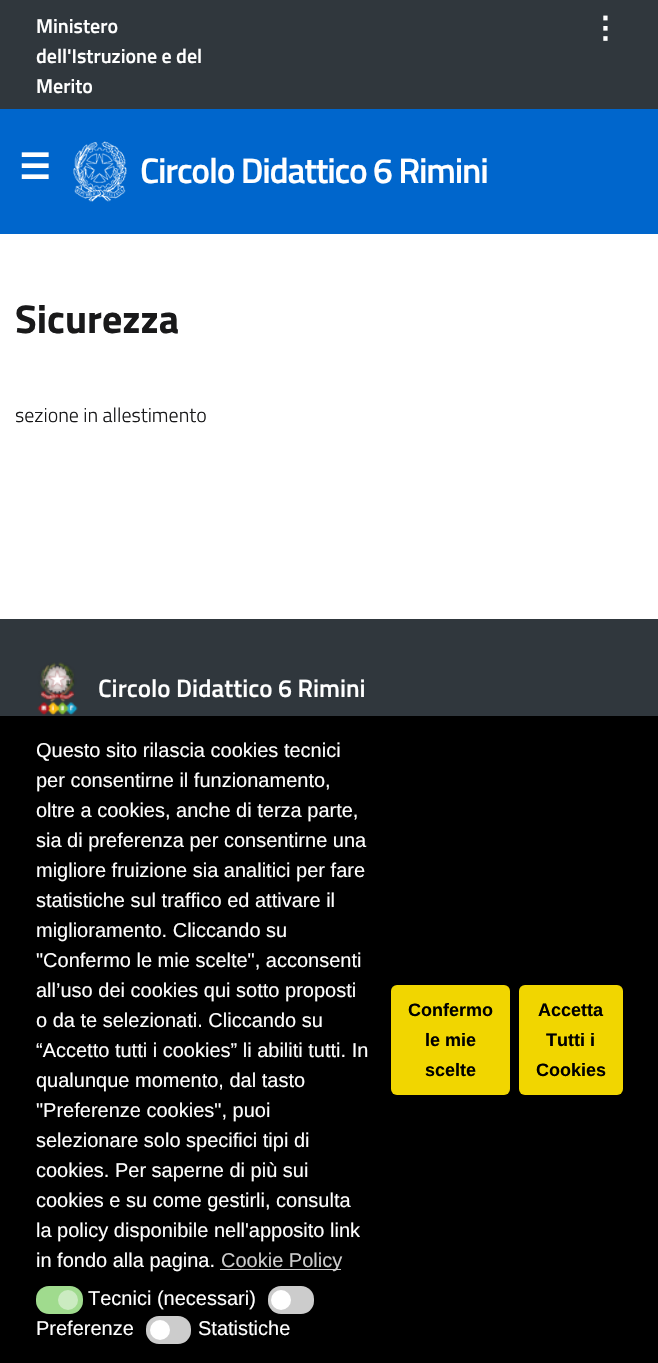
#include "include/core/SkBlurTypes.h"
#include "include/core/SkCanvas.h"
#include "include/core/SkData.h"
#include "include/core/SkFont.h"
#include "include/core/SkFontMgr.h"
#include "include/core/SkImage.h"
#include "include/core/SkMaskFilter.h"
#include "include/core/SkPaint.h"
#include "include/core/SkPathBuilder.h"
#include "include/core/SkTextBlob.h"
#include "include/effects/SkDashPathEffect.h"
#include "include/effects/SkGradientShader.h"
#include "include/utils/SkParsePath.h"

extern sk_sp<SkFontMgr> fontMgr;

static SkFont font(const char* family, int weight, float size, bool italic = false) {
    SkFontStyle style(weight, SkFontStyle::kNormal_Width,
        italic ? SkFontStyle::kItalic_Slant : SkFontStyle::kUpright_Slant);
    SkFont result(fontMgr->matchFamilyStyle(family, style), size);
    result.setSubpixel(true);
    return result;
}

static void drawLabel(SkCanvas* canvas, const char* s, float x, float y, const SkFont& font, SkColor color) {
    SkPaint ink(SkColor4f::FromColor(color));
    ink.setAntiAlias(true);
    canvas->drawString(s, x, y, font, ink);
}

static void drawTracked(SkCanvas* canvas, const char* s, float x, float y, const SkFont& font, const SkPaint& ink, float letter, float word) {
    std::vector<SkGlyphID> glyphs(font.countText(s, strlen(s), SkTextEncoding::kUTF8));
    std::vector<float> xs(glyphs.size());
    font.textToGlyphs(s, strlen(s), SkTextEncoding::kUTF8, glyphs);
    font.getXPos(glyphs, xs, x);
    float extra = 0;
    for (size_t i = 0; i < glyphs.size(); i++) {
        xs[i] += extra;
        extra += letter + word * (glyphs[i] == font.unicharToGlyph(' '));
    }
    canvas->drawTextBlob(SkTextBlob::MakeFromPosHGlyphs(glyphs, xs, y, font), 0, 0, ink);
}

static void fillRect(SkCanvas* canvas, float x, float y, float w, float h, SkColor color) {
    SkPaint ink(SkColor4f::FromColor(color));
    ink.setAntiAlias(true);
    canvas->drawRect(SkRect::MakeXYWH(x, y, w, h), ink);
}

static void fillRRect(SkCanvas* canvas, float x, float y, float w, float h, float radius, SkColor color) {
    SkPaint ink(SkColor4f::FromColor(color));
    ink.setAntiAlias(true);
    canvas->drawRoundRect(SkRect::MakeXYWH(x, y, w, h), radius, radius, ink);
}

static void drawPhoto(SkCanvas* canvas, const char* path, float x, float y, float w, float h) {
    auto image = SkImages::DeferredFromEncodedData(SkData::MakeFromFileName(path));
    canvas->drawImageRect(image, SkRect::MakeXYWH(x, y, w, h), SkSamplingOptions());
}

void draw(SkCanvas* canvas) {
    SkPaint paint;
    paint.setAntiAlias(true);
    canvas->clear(0xFFFFFFFF);
    fillRect(canvas, 0, 109, 658, 125, 0xFF0066CC);
    fillRect(canvas, 0, 0, 658, 109, 0xFF30373D);
    SkFont font1 = font("Titillium Web", 600, 20);
    drawLabel(canvas, "Ministero", 36, 33, font1, 0xFFFFFFFF);
    drawLabel(canvas, "dell'Istruzione e del", 36, 63, font1, 0xFFFFFFFF);
    drawLabel(canvas, "Merito", 36, 93, font1, 0xFFFFFFFF);
    SkFont font2 = font("DejaVu Sans", 700, 30);
    drawLabel(canvas, "⋮", 590, 38, font2, 0xFFFFFFFF);
    SkFont font3 = font("DejaVu Sans", 700, 35);
    drawLabel(canvas, "☰", 19, 179, font3, 0xFFFFFFFF);
    drawPhoto(canvas, "assets/img1.png", 73, 141, 54, 61);
    SkFont font4 = font("Titillium Web", 600, 35.5f);
    paint.setColor(0xFFFFFFFF);
    drawTracked(canvas, "Circolo Didattico 6 Rimini", 140, 183, font4, paint, -1.25f, 0);
    SkFont font5 = font("Titillium Web", 700, 40);
    drawLabel(canvas, "Sicurezza", 15, 333, font5, 0xFF19191A);
    SkFont font6 = font("Titillium Web", 300, 20);
    drawLabel(canvas, "sezione in allestimento", 15, 422, font6, 0xFF19191A);
    fillRect(canvas, 0, 619, 658, 97, 0xFF30373D);
    drawPhoto(canvas, "assets/img2.png", 37, 662, 41, 54);
    SkFont font7 = font("Titillium Web", 600, 25);
    drawLabel(canvas, "Circolo Didattico 6 Rimini", 98, 697, font7, 0xFFFFFFFF);
    fillRect(canvas, 0, 716, 658, 647, 0xFF000000);
    SkFont font8 = font("Liberation Sans", 400, 20);
    drawLabel(canvas, "Questo sito rilascia cookies tecnici", 36, 757, font8, 0xFFFFFFFF);
    drawLabel(canvas, "per consentirne il funzionamento,", 36, 787, font8, 0xFFFFFFFF);
    drawLabel(canvas, "oltre a cookies, anche di terza parte,", 36, 817, font8, 0xFFFFFFFF);
    drawLabel(canvas, "sia di preferenza per consentirne una", 36, 847, font8, 0xFFFFFFFF);
    drawLabel(canvas, "migliore fruizione sia analitici per fare", 36, 877, font8, 0xFFFFFFFF);
    drawLabel(canvas, "statistiche sul traffico ed attivare il", 36, 907, font8, 0xFFFFFFFF);
    drawLabel(canvas, "miglioramento. Cliccando su", 36, 937, font8, 0xFFFFFFFF);
    drawLabel(canvas, "\"Confermo le mie scelte\", acconsenti", 36, 967, font8, 0xFFFFFFFF);
    drawLabel(canvas, "all’uso dei cookies qui sotto proposti", 36, 997, font8, 0xFFFFFFFF);
    drawLabel(canvas, "o da te selezionati. Cliccando su", 36, 1027, font8, 0xFFFFFFFF);
    drawLabel(canvas, "“Accetto tutti i cookies” li abiliti tutti. In", 36, 1057, font8, 0xFFFFFFFF);
    drawLabel(canvas, "qualunque momento, dal tasto", 36, 1087, font8, 0xFFFFFFFF);
    drawLabel(canvas, "\"Preferenze cookies\", puoi", 36, 1117, font8, 0xFFFFFFFF);
    drawLabel(canvas, "selezionare solo specifici tipi di", 36, 1147, font8, 0xFFFFFFFF);
    drawLabel(canvas, "cookies. Per saperne di più sui", 36, 1177, font8, 0xFFFFFFFF);
    drawLabel(canvas, "cookies e su come gestirli, consulta", 36, 1207, font8, 0xFFFFFFFF);
    drawLabel(canvas, "la policy disponibile nell'apposito link", 36, 1237, font8, 0xFFFFFFFF);
    drawLabel(canvas, "in fondo alla pagina.", 36, 1267, font8, 0xFFFFFFFF);
    fillRect(canvas, 220, 1269, 121, 1, 0xFFCCCCCC);
    drawLabel(canvas, "Cookie Policy", 221, 1267, font8, 0xFFCCCCCC);
    fillRRect(canvas, 36, 1286, 47, 28, 13, 0xFFA0DB8E);
    paint.setColor(0xFFCBEBC1);
    canvas->drawCircle(68, 1300, 10, paint);
    drawLabel(canvas, "Tecnici (necessari)", 88, 1305, font8, 0xFFFFFFFF);
    fillRRect(canvas, 268, 1286, 46, 28, 13, 0xFFCCCCCC);
    paint.setColor(0xFFFFFFFF);
    canvas->drawCircle(281, 1300, 10, paint);
    drawLabel(canvas, "Preferenze", 36, 1335, font8, 0xFFFFFFFF);
    fillRRect(canvas, 146, 1316, 45, 28, 13, 0xFFCCCCCC);
    canvas->drawCircle(160, 1330, 10, paint);
    drawLabel(canvas, "Statistiche", 198, 1335, font8, 0xFFFFFFFF);
    fillRRect(canvas, 391, 985, 119, 110, 6, 0xFFF1D600);
    SkFont font9 = font("Liberation Sans", 700, 18);
    drawLabel(canvas, "Confermo", 408, 1016, font9, 0xFF000000);
    drawLabel(canvas, "le mie", 425, 1046, font9, 0xFF000000);
    drawLabel(canvas, "scelte", 425, 1076, font9, 0xFF000000);
    fillRRect(canvas, 519, 985, 104, 110, 6, 0xFFF1D600);
    drawLabel(canvas, "Accetta", 538, 1016, font9, 0xFF000000);
    drawLabel(canvas, "Tutti i", 546, 1046, font9, 0xFF000000);
    drawLabel(canvas, "Cookies", 536, 1076, font9, 0xFF000000);
}
